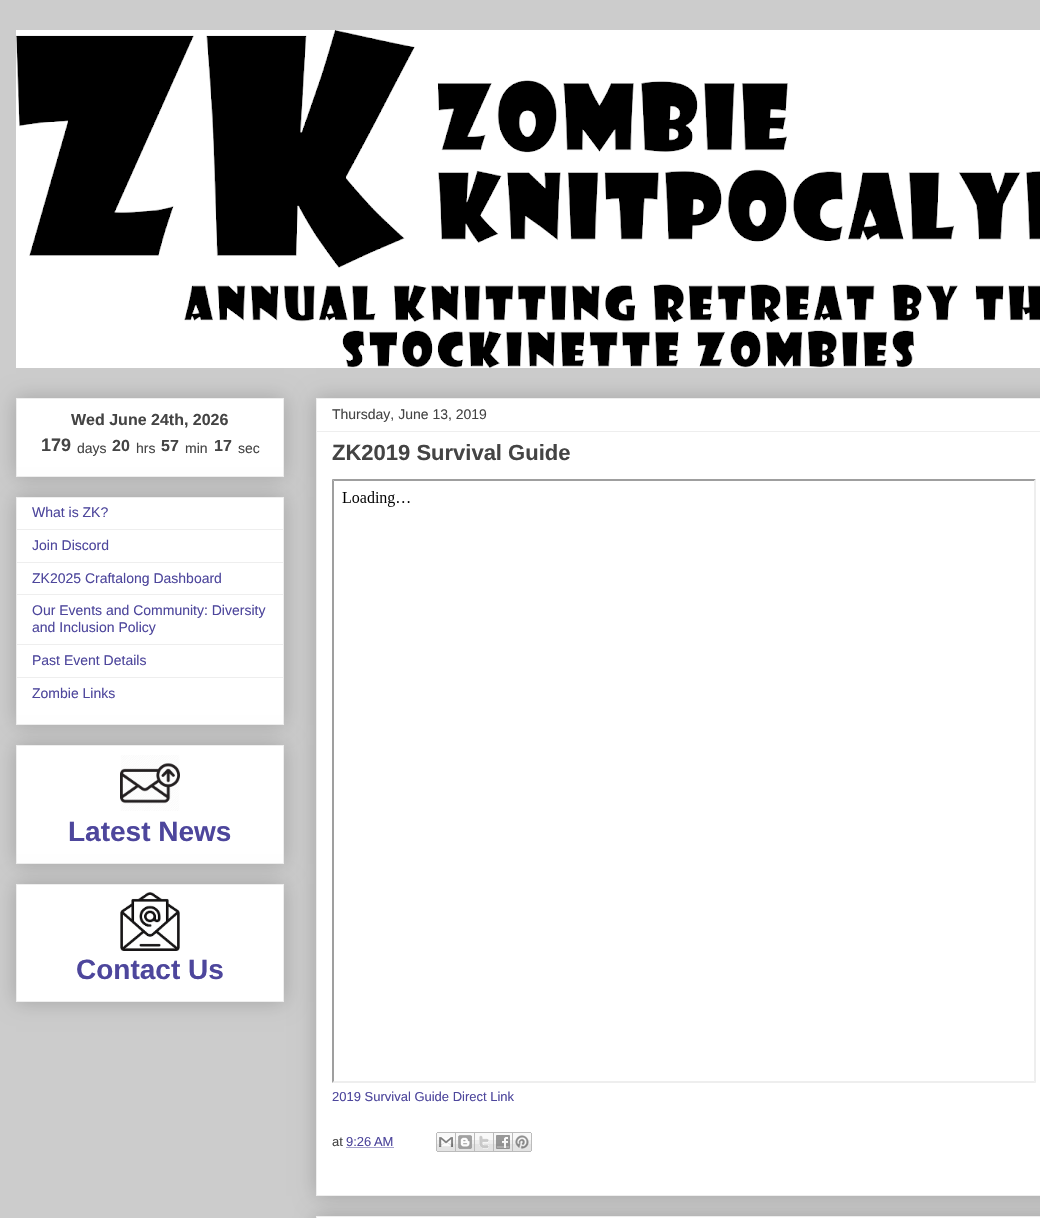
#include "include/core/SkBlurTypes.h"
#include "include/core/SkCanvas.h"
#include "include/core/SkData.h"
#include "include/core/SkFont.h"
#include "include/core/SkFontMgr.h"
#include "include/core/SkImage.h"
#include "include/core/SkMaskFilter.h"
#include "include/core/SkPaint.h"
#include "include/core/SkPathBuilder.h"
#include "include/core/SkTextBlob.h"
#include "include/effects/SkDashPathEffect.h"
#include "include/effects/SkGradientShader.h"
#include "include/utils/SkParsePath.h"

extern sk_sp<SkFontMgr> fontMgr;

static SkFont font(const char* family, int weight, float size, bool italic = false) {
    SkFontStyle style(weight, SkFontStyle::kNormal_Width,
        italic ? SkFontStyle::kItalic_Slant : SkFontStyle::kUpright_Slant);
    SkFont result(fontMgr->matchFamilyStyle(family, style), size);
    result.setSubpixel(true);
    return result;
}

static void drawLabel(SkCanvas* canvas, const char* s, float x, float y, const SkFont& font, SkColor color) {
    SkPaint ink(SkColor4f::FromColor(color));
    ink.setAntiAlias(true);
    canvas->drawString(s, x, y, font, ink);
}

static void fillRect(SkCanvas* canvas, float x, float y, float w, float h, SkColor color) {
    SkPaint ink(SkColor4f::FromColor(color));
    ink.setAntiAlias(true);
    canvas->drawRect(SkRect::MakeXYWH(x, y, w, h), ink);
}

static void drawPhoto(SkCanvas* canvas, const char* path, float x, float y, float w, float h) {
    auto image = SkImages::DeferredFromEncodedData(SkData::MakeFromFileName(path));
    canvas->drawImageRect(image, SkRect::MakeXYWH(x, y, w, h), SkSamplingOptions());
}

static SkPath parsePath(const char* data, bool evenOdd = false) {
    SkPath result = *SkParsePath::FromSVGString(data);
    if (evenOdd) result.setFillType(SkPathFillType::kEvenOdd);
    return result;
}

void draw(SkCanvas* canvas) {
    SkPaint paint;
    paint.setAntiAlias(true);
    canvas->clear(0xFFCCCCCC);
    drawPhoto(canvas, "assets/img1.png", 16, 30, 1024, 338);
    paint.setColor(0x33000000);
    paint.setMaskFilter(SkMaskFilter::MakeBlur(kNormal_SkBlurStyle, 10));
    canvas->drawRect(SkRect::MakeXYWH(16, 398, 268, 79), paint);
    paint.setMaskFilter(nullptr);
    paint.setColor(0xFFFFFFFF);
    canvas->drawRect(SkRect::MakeXYWH(16.5f, 398.5f, 267, 78), paint);
    paint.setStroke(true);
    paint.setStrokeWidth(1);
    paint.setColor(0xFFEEEEEE);
    canvas->drawRect(SkRect::MakeXYWH(16.5f, 398.5f, 267, 78), paint);
    SkFont font1 = font("Liberation Sans", 700, 16);
    drawLabel(canvas, "Wed June 24th, 2026", 71, 425, font1, 0xFF444444);
    SkFont font2 = font("Liberation Sans", 700, 18);
    drawLabel(canvas, "179", 41, 451, font2, 0xFF444444);
    SkFont font3 = font("Liberation Sans", 400, 14);
    drawLabel(canvas, "days", 77, 453, font3, 0xFF444444);
    drawLabel(canvas, "20", 112, 451, font1, 0xFF444444);
    drawLabel(canvas, "hrs", 136, 453, font3, 0xFF444444);
    drawLabel(canvas, "57", 161, 451, font1, 0xFF444444);
    drawLabel(canvas, "min", 185, 453, font3, 0xFF444444);
    drawLabel(canvas, "17", 214, 451, font1, 0xFF444444);
    drawLabel(canvas, "sec", 238, 453, font3, 0xFF444444);
    paint.setStroke(false);
    paint.setColor(0x33000000);
    paint.setMaskFilter(SkMaskFilter::MakeBlur(kNormal_SkBlurStyle, 10));
    canvas->drawRect(SkRect::MakeXYWH(16, 497, 268, 228), paint);
    paint.setMaskFilter(nullptr);
    paint.setColor(0xFFFFFFFF);
    canvas->drawRect(SkRect::MakeXYWH(16.5f, 497.5f, 267, 227), paint);
    paint.setStroke(true);
    paint.setColor(0xFFEEEEEE);
    canvas->drawRect(SkRect::MakeXYWH(16.5f, 497.5f, 267, 227), paint);
    drawLabel(canvas, "What is ZK?", 32, 517, font3, 0xFF4D469C);
    fillRect(canvas, 17, 529, 266, 1, 0xFFEEEEEE);
    drawLabel(canvas, "Join Discord", 32, 550, font3, 0xFF4D469C);
    fillRect(canvas, 17, 562, 266, 1, 0xFFEEEEEE);
    drawLabel(canvas, "ZK2025 Craftalong Dashboard", 32, 583, font3, 0xFF4D469C);
    fillRect(canvas, 17, 594, 266, 1, 0xFFEEEEEE);
    drawLabel(canvas, "Our Events and Community: Diversity", 32, 615, font3, 0xFF4D469C);
    drawLabel(canvas, "and Inclusion Policy", 32, 632, font3, 0xFF4D469C);
    fillRect(canvas, 17, 644, 266, 1, 0xFFEEEEEE);
    drawLabel(canvas, "Past Event Details", 32, 665, font3, 0xFF4D469C);
    fillRect(canvas, 17, 677, 266, 1, 0xFFEEEEEE);
    drawLabel(canvas, "Zombie Links", 32, 698, font3, 0xFF4D469C);
    paint.setStroke(false);
    paint.setColor(0x33000000);
    paint.setMaskFilter(SkMaskFilter::MakeBlur(kNormal_SkBlurStyle, 10));
    canvas->drawRect(SkRect::MakeXYWH(16, 745, 268, 119), paint);
    paint.setMaskFilter(nullptr);
    paint.setColor(0xFFFFFFFF);
    canvas->drawRect(SkRect::MakeXYWH(16.5f, 745.5f, 267, 118), paint);
    paint.setStroke(true);
    paint.setColor(0xFFEEEEEE);
    canvas->drawRect(SkRect::MakeXYWH(16.5f, 745.5f, 267, 118), paint);
    drawPhoto(canvas, "assets/img2.png", 120, 755, 60, 56);
    SkFont font4 = font("Liberation Sans", 700, 28);
    drawLabel(canvas, "Latest News", 68, 841, font4, 0xFF4D469C);
    paint.setStroke(false);
    paint.setColor(0x33000000);
    paint.setMaskFilter(SkMaskFilter::MakeBlur(kNormal_SkBlurStyle, 10));
    canvas->drawRect(SkRect::MakeXYWH(16, 884, 268, 118), paint);
    paint.setMaskFilter(nullptr);
    paint.setColor(0xFFFFFFFF);
    canvas->drawRect(SkRect::MakeXYWH(16.5f, 884.5f, 267, 117), paint);
    paint.setStroke(true);
    paint.setColor(0xFFEEEEEE);
    canvas->drawRect(SkRect::MakeXYWH(16.5f, 884.5f, 267, 117), paint);
    drawPhoto(canvas, "assets/img3.png", 120, 892, 60, 59);
    drawLabel(canvas, "Contact Us", 76, 979, font4, 0xFF4D469C);
    paint.setStroke(false);
    paint.setColor(0x33000000);
    paint.setMaskFilter(SkMaskFilter::MakeBlur(kNormal_SkBlurStyle, 10));
    canvas->drawRect(SkRect::MakeXYWH(316, 1216, 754, 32), paint);
    paint.setMaskFilter(nullptr);
    paint.setColor(0xFFFFFFFF);
    canvas->drawRect(SkRect::MakeXYWH(316.5f, 1216.5f, 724, 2), paint);
    paint.setStroke(true);
    paint.setColor(0xFFEEEEEE);
    canvas->drawRect(SkRect::MakeXYWH(316.5f, 1216.5f, 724, 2), paint);
    paint.setStroke(false);
    paint.setColor(0x33000000);
    paint.setMaskFilter(SkMaskFilter::MakeBlur(kNormal_SkBlurStyle, 10));
    canvas->drawRect(SkRect::MakeXYWH(316, 398, 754, 798), paint);
    paint.setMaskFilter(nullptr);
    paint.setColor(0xFFFFFFFF);
    canvas->drawRect(SkRect::MakeXYWH(316.5f, 398.5f, 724, 797), paint);
    paint.setStroke(true);
    paint.setColor(0xFFEEEEEE);
    canvas->drawRect(SkRect::MakeXYWH(316.5f, 398.5f, 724, 797), paint);
    drawLabel(canvas, "Thursday, June 13, 2019", 332, 419, font3, 0xFF444444);
    fillRect(canvas, 317, 431, 723, 1, 0xFFEEEEEE);
    SkFont font5 = font("Liberation Sans", 700, 22);
    drawLabel(canvas, "ZK2019 Survival Guide", 332, 460, font5, 0xFF444444);
    paint.setStroke(false);
    paint.setColor(0xFF9F9F9F);
    canvas->drawPath(parsePath("M332 479H1036L1034 481H334Z"), paint);
    paint.setColor(0xFFEEEEEE);
    canvas->drawPath(parsePath("M1036 479V1083L1034 1081V481Z"), paint);
    canvas->drawPath(parsePath("M1036 1083H332L334 1081H1034Z"), paint);
    paint.setColor(0xFF9F9F9F);
    canvas->drawPath(parsePath("M332 1083V479L334 481V1081Z"), paint);
    drawPhoto(canvas, "assets/img4.png", 342, 491, 68, 16);
    SkFont font6 = font("Liberation Sans", 400, 13);
    drawLabel(canvas, "2019 Survival Guide Direct Link", 332, 1101, font6, 0xFF4D469C);
    drawLabel(canvas, "at", 332, 1146, font6, 0xFF444444);
    drawLabel(canvas, "9:26 AM", 346, 1146, font6, 0xFF4D469C);
    paint.setStroke(true);
    paint.setColor(0xFF4D469C);
    paint.setPathEffect(SkDashPathEffect::Make({{1, 1}}, 0));
    canvas->drawPath(parsePath("M346.5 1147.5H394"), paint);
    paint.setPathEffect(nullptr);
    drawPhoto(canvas, "assets/img5.png", 436, 1132, 20, 20);
    drawPhoto(canvas, "assets/img6.png", 456, 1132, 19, 20);
    drawPhoto(canvas, "assets/img7.png", 475, 1132, 19, 20);
    drawPhoto(canvas, "assets/img8.png", 494, 1132, 19, 20);
    drawPhoto(canvas, "assets/img9.png", 513, 1132, 19, 20);
}
